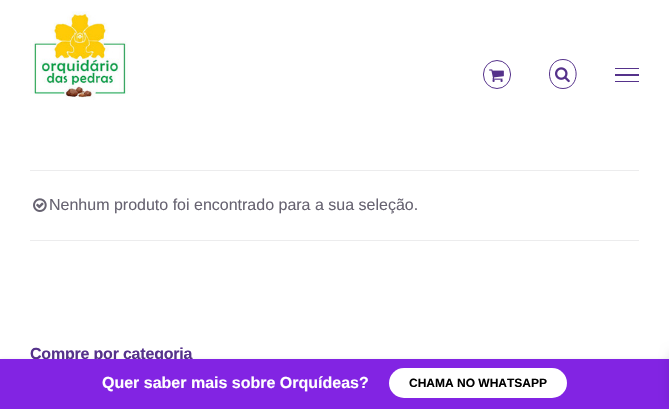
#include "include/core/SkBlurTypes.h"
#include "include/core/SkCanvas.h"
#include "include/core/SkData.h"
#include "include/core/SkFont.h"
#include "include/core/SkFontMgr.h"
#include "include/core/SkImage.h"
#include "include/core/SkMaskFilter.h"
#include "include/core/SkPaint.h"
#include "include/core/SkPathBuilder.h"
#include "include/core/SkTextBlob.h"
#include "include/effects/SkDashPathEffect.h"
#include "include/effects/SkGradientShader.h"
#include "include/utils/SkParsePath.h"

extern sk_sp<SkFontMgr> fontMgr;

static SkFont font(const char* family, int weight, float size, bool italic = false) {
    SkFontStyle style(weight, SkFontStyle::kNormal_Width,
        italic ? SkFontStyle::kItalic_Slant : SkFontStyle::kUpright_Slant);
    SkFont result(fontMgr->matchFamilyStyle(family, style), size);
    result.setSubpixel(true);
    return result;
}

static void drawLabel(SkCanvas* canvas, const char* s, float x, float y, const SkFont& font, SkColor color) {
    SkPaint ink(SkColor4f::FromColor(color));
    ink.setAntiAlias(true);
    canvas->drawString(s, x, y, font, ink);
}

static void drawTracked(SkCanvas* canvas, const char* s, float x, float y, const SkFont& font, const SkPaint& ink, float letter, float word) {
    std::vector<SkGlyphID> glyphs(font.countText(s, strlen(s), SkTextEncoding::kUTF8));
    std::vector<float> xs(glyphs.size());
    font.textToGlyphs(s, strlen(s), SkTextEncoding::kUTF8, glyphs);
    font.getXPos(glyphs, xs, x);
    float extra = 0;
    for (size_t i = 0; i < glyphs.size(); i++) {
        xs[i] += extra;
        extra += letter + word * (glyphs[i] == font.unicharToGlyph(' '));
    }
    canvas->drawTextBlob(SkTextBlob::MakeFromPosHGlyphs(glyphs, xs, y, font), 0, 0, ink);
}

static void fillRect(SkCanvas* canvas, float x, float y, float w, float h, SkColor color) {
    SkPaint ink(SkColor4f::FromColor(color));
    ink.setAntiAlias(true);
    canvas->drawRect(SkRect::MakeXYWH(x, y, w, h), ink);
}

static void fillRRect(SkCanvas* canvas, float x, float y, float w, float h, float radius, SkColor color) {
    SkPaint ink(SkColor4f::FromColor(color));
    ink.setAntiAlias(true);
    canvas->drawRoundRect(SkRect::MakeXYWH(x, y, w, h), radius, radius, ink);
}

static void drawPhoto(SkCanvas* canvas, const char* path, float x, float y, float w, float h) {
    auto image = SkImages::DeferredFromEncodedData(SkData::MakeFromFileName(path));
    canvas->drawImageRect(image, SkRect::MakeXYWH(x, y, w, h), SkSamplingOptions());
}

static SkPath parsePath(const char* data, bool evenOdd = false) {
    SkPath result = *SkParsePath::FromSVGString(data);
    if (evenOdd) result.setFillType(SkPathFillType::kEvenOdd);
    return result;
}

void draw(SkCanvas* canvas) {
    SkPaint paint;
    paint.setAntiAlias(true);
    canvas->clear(0xFFFFFFFF);
    drawPhoto(canvas, "assets/img1.png", 30, 11, 98, 89);
    paint.setStroke(true);
    paint.setStrokeWidth(1);
    paint.setColor(0xFF55328B);
    canvas->drawRoundRect(SkRect::MakeXYWH(483.5f, 60.5f, 27, 28), 13.5f, 13.5f, paint);
    drawPhoto(canvas, "assets/img2.png", 489, 69, 15, 13);
    canvas->drawPath(parsePath("M563 59.5C580.5 59.5 580.5 88.5 563 88.5C545 88.5 545 59.5 563 59.5Z"), paint);
    drawPhoto(canvas, "assets/img3.png", 555, 67, 15, 16);
    fillRect(canvas, 615, 68, 24, 1, 0xFF55328B);
    fillRect(canvas, 615, 74, 24, 2, 0xFF55328B);
    fillRect(canvas, 615, 81, 24, 1, 0xFF55328B);
    fillRect(canvas, 30, 170, 609, 1, 0xFFECECED);
    fillRect(canvas, 30, 240, 609, 1, 0xFFECECED);
    drawPhoto(canvas, "assets/img4.png", 33, 198, 14, 14);
    SkFont font1 = font("Liberation Sans", 400, 16);
    drawLabel(canvas, "Nenhum produto foi encontrado para a sua seleção.", 49, 210, font1, 0xFF676371);
    SkFont font2 = font("Liberation Sans", 700, 16);
    paint.setStroke(false);
    drawTracked(canvas, "Compre por categoria", 30, 359, font2, paint, -0.2f, 0);
    paint.setColor(0x4D353534);
    paint.setMaskFilter(SkMaskFilter::MakeBlur(kNormal_SkBlurStyle, 3));
    canvas->drawRect(SkRect::MakeXYWH(0, 362, 669, 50), paint);
    paint.setMaskFilter(nullptr);
    fillRect(canvas, 0, 359, 669, 50, 0xFF8224E3);
    drawLabel(canvas, "Quer saber mais sobre Orquídeas?", 102, 388, font2, 0xFFFFFFFF);
    fillRRect(canvas, 389, 368, 178, 30, 15, 0xFFFFFFFF);
    SkFont font3 = font("Liberation Sans", 700, 12);
    drawLabel(canvas, "CHAMA NO WHATSAPP", 409, 387, font3, 0xFF000000);
    paint.setColor(0x1A000000);
    paint.setMaskFilter(SkMaskFilter::MakeBlur(kNormal_SkBlurStyle, 5));
    canvas->drawRect(SkRect::MakeXYWH(669, 352, 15, 52), paint);
    paint.setMaskFilter(nullptr);
}
